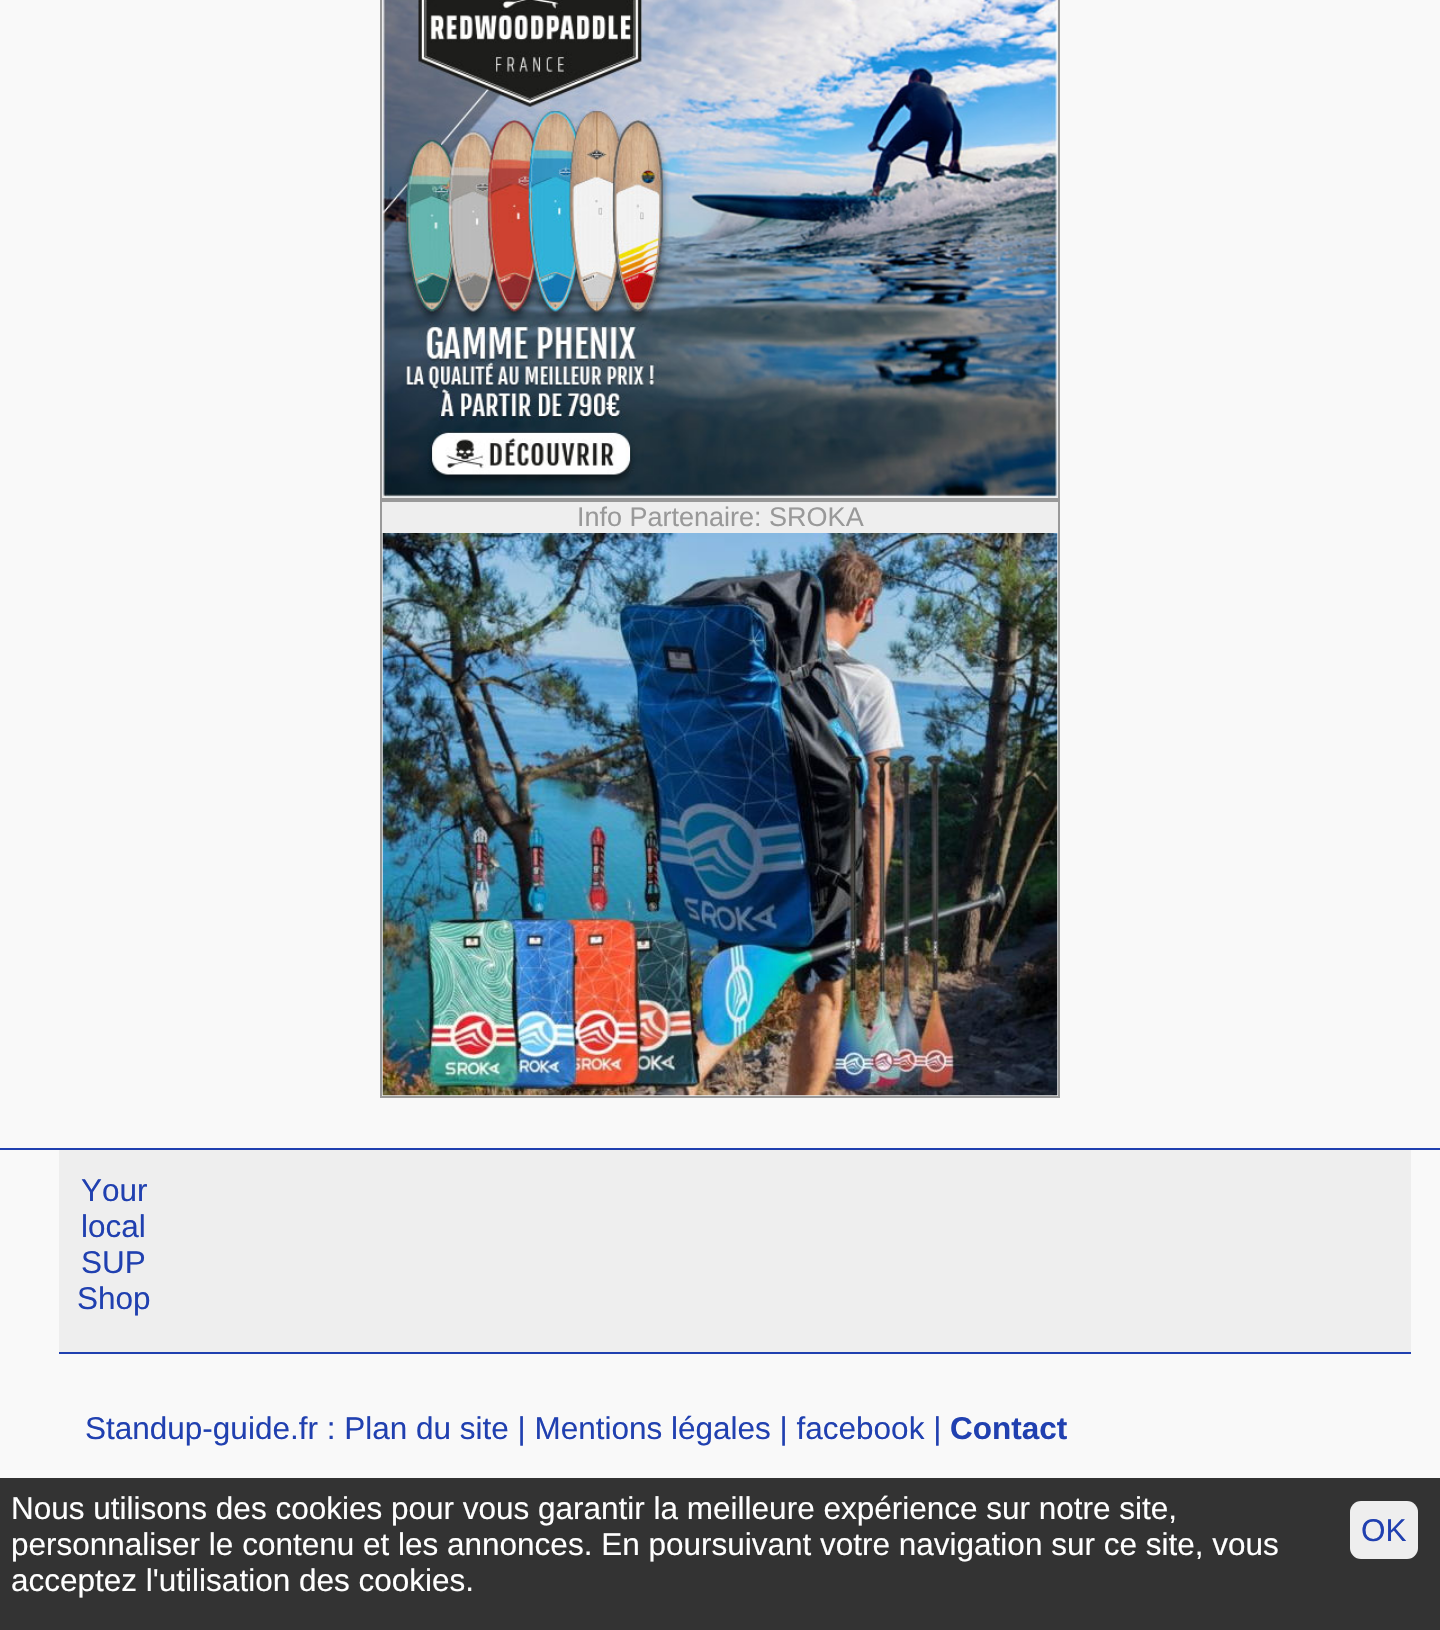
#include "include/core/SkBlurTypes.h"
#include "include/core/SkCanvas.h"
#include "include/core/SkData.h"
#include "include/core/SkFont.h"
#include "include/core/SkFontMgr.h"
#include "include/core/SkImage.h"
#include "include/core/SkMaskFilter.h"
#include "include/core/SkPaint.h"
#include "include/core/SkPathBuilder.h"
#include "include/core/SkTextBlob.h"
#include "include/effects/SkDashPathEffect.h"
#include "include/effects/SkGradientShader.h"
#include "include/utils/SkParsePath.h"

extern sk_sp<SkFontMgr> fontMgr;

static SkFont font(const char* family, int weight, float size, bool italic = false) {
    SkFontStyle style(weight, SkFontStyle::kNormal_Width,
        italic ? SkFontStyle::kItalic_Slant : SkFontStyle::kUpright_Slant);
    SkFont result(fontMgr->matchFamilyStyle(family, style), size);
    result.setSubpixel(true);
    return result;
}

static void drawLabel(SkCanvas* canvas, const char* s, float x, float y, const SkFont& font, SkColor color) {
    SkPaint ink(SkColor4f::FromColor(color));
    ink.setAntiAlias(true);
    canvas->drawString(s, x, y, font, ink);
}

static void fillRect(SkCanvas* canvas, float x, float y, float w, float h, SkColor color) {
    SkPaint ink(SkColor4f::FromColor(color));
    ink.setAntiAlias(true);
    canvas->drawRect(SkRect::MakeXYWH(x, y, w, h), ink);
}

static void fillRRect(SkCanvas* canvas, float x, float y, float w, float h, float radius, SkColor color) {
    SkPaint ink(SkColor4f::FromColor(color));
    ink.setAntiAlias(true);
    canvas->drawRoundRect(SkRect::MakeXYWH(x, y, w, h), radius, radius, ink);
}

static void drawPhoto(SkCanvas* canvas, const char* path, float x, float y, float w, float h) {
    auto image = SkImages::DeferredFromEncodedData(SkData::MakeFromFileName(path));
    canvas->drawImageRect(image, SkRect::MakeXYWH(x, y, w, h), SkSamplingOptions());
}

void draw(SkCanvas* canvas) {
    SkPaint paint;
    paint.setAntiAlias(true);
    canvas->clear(0xFFF9F9F9);
    paint.setColor(0xFFEEEEEE);
    canvas->drawRect(SkRect::MakeXYWH(381, -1, 678, 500), paint);
    paint.setStroke(true);
    paint.setStrokeWidth(2);
    paint.setColor(0xFF999999);
    canvas->drawRect(SkRect::MakeXYWH(381, -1, 678, 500), paint);
    drawPhoto(canvas, "assets/img1.png", 382, 0, 676, 497);
    paint.setStroke(false);
    paint.setColor(0xFFEEEEEE);
    canvas->drawRect(SkRect::MakeXYWH(381, 501, 678, 596), paint);
    paint.setStroke(true);
    paint.setColor(0xFF999999);
    canvas->drawRect(SkRect::MakeXYWH(381, 501, 678, 596), paint);
    SkFont font1 = font("Liberation Sans", 400, 27);
    drawLabel(canvas, "Info Partenaire: SROKA", 577, 526, font1, 0xFF999999);
    drawPhoto(canvas, "assets/img2.png", 382, 533, 676, 563);
    fillRect(canvas, 0, 1148, 1440, 2, 0xFF2040B0);
    fillRect(canvas, 59, 1352, 1352, 2, 0xFF2040B0);
    fillRect(canvas, 59, 1150, 1352, 202, 0xFFEEEEEE);
    SkFont font2 = font("Liberation Sans", 400, 31.5f);
    drawLabel(canvas, "Your", 81, 1201, font2, 0xFF2040B0);
    drawLabel(canvas, "local", 81, 1237, font2, 0xFF2040B0);
    drawLabel(canvas, "SUP", 81, 1273, font2, 0xFF2040B0);
    drawLabel(canvas, "Shop", 77, 1309, font2, 0xFF2040B0);
    drawLabel(canvas, "Standup-guide.fr : Plan du site | Mentions légales | facebook |", 85, 1439, font2, 0xFF2040B0);
    SkFont font3 = font("Liberation Sans", 700, 31.5f);
    drawLabel(canvas, "Contact", 950, 1439, font3, 0xFF2040B0);
    fillRect(canvas, 0, 1478, 1440, 152, 0xFF333333);
    drawLabel(canvas, "Nous utilisons des cookies pour vous garantir la meilleure expérience sur notre site,", 11, 1519, font2, 0xFFFFFFFF);
    drawLabel(canvas, "personnaliser le contenu et les annonces. En poursuivant votre navigation sur ce site, vous", 11, 1555, font2, 0xFFFFFFFF);
    drawLabel(canvas, "acceptez l'utilisation des cookies.", 11, 1591, font2, 0xFFFFFFFF);
    fillRRect(canvas, 1350, 1501, 68, 58, 11, 0xFFEEEEEE);
    drawLabel(canvas, "OK", 1361, 1541, font2, 0xFF2040B0);
}
